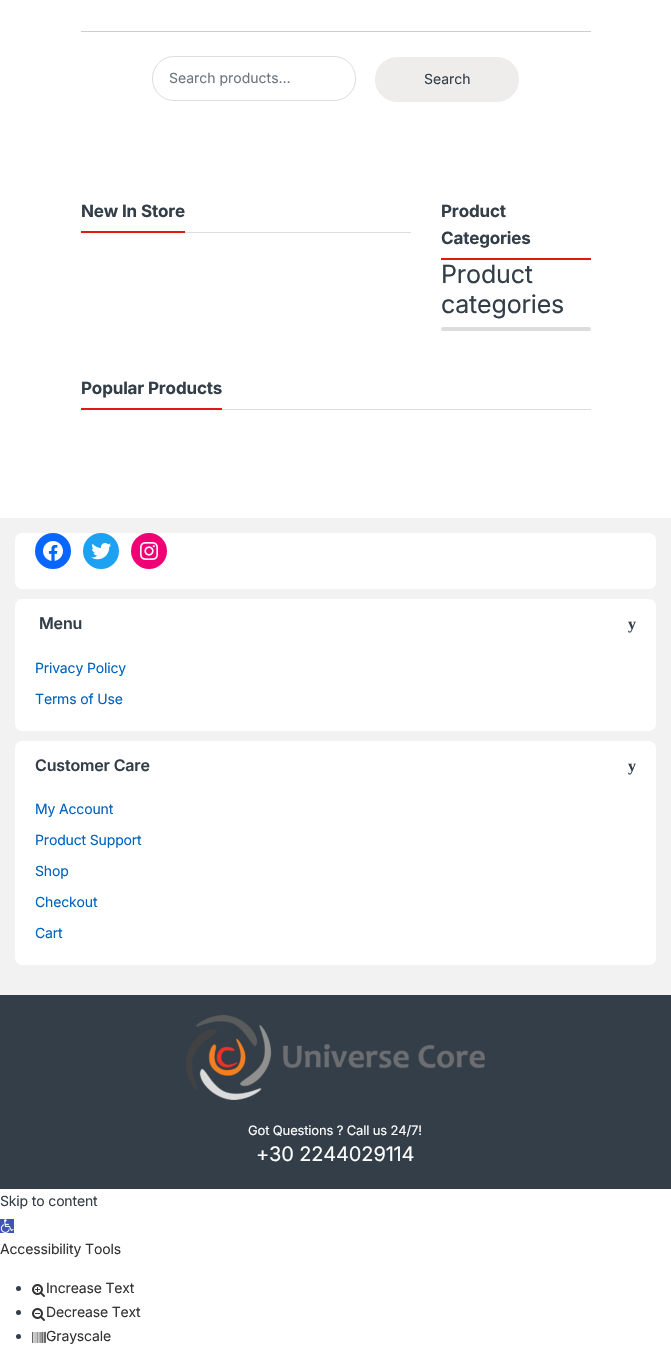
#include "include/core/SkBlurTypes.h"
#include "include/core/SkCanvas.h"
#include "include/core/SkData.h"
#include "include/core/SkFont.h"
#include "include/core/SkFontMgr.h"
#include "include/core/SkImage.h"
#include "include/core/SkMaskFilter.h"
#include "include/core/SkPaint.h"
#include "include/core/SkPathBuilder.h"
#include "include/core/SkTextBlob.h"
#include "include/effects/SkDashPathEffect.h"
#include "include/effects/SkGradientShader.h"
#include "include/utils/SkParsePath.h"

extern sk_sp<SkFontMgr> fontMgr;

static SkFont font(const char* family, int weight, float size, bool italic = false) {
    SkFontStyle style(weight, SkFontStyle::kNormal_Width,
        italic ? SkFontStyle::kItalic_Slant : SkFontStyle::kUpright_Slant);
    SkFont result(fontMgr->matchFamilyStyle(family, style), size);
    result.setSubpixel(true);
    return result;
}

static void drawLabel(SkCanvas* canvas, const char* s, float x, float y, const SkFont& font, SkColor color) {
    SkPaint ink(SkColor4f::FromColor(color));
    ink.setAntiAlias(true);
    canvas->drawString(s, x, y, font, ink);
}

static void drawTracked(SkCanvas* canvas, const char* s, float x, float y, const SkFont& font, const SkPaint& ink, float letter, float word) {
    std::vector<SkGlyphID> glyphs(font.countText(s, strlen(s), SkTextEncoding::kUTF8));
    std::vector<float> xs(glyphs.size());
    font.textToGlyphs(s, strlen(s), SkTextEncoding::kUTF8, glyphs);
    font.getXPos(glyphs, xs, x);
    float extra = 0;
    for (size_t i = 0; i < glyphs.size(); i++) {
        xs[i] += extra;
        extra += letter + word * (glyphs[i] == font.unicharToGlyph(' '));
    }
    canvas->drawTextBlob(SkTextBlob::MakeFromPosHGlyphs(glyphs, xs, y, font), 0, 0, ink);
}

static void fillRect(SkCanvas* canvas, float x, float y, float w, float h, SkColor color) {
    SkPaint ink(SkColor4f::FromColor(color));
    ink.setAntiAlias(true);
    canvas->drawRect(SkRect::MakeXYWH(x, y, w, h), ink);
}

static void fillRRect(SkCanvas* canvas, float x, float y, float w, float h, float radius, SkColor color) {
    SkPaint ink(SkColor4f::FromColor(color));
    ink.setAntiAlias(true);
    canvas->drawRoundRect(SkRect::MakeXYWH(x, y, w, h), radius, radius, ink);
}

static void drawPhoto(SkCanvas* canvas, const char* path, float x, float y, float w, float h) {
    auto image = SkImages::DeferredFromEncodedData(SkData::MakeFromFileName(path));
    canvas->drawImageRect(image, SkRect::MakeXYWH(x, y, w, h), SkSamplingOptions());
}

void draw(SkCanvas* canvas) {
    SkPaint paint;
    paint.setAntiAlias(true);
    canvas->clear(0xFFFFFFFF);
    fillRect(canvas, 81, 31, 510, 1, 0xFFCCCFD1);
    paint.setStroke(true);
    paint.setStrokeWidth(1);
    paint.setColor(0xFFDDDDDD);
    canvas->drawRoundRect(SkRect::MakeXYWH(152.5f, 56.5f, 203, 44), 21.5f, 21.5f, paint);
    SkFont font1 = font("Inter", 400, 14);
    drawLabel(canvas, "Search products…", 169, 83, font1, 0xFF6C757D);
    paint.setStroke(false);
    paint.setColor(0xFFEFECEC);
    canvas->drawRoundRect(SkRect::MakeXYWH(375.5f, 57.5f, 143, 44), 21.5f, 21.5f, paint);
    paint.setStroke(true);
    canvas->drawRoundRect(SkRect::MakeXYWH(375.5f, 57.5f, 143, 44), 21.5f, 21.5f, paint);
    drawLabel(canvas, "Search", 424, 84, font1, 0xFF333E48);
    fillRect(canvas, 185, 232, 226, 1, 0xFFDDDDDD);
    SkFont font2 = font("Inter", 700, 17);
    paint.setStroke(false);
    paint.setColor(0xFF333E48);
    drawTracked(canvas, "New In Store", 81, 217, font2, paint, -0.15f, 0);
    fillRect(canvas, 81, 231, 104, 2, 0xFFE01A10);
    drawTracked(canvas, "Product", 441, 217, font2, paint, -0.15f, 0);
    drawTracked(canvas, "Categories", 441, 244, font2, paint, -0.15f, 0);
    fillRect(canvas, 441, 258, 150, 2, 0xFFE01A10);
    SkFont font3 = font("Inter", 400, 25);
    drawTracked(canvas, "Product", 441, 283, font3, paint, -0.15f, 0);
    drawTracked(canvas, "categories", 441, 313, font3, paint, -0.15f, 0);
    fillRRect(canvas, 441, 327, 150, 4, 2, 0xFFDDDDDD);
    fillRect(canvas, 222, 409, 369, 1, 0xFFDDDDDD);
    drawTracked(canvas, "Popular Products", 81, 394, font2, paint, -0.15f, 0);
    fillRect(canvas, 81, 408, 141, 2, 0xFFE01A10);
    fillRect(canvas, 0, 518, 671, 477, 0xFFF2F2F2);
    fillRRect(canvas, 15, 533, 641, 56, 7, 0xFFFFFFFF);
    paint.setColor(0xFF0866FF);
    canvas->drawCircle(53, 551, 18, paint);
    drawPhoto(canvas, "assets/img1.png", 43, 541, 20, 20);
    paint.setColor(0xFF1DA1F2);
    canvas->drawCircle(101, 551, 18, paint);
    drawPhoto(canvas, "assets/img2.png", 91, 543, 20, 17);
    paint.setColor(0xFFF00075);
    canvas->drawCircle(149, 551, 18, paint);
    drawPhoto(canvas, "assets/img3.png", 140, 542, 18, 18);
    fillRRect(canvas, 15, 599, 641, 132, 7, 0xFFFFFFFF);
    SkFont font4 = font("Inter", 600, 16);
    paint.setColor(0xFF333E48);
    drawTracked(canvas, "Menu", 39, 629, font4, paint, -0.15f, 0);
    SkFont font5 = font("Liberation Serif", 700, 16);
    drawTracked(canvas, "y", 628, 629, font5, paint, -0.15f, 0);
    paint.setColor(0xFF0062BD);
    drawTracked(canvas, "Privacy Policy", 35, 673, font1, paint, -0.15f, 0);
    drawTracked(canvas, "Terms of Use", 35, 704, font1, paint, -0.15f, 0);
    fillRRect(canvas, 15, 741, 641, 224, 7, 0xFFFFFFFF);
    paint.setColor(0xFF333E48);
    drawTracked(canvas, "Customer Care", 35, 771, font4, paint, -0.15f, 0);
    drawTracked(canvas, "y", 628, 771, font5, paint, -0.15f, 0);
    paint.setColor(0xFF0062BD);
    drawTracked(canvas, "My Account", 35, 814, font1, paint, -0.15f, 0);
    drawTracked(canvas, "Product Support", 35, 845, font1, paint, -0.15f, 0);
    drawTracked(canvas, "Shop", 35, 876, font1, paint, -0.15f, 0);
    drawTracked(canvas, "Checkout", 35, 907, font1, paint, -0.15f, 0);
    drawTracked(canvas, "Cart", 35, 938, font1, paint, -0.15f, 0);
    fillRect(canvas, 0, 995, 671, 194, 0xFF333E48);
    drawPhoto(canvas, "assets/img4.png", 186, 1015, 299, 85);
    SkFont font6 = font("Inter", 400, 13);
    paint.setColor(0xFFFFFFFF);
    drawTracked(canvas, "Got Questions ? Call us 24/7!", 248, 1135, font6, paint, -0.15f, 0);
    SkFont font7 = font("Inter", 400, 20);
    drawTracked(canvas, "+30 2244029114", 256, 1161, font7, paint, -0.15f, 0);
    paint.setColor(0xFF333E48);
    drawTracked(canvas, "Skip to content", 0, 1206, font1, paint, -0.15f, 0);
    fillRect(canvas, 0, 1219, 14, 14, 0xFF4054B2);
    drawPhoto(canvas, "assets/img5.png", 0, 1219, 14, 14);
    paint.setColor(0xFF333333);
    drawTracked(canvas, "Accessibility Tools", 0, 1254, font1, paint, -0.15f, 0);
    paint.setColor(0xFF333E48);
    canvas->drawCircle(18.5f, 1288.5f, 2.5f, paint);
    drawPhoto(canvas, "assets/img6.png", 32, 1284, 13, 13);
    paint.setColor(0xFF333333);
    drawTracked(canvas, "Increase Text", 46, 1293, font1, paint, -0.15f, 0);
    paint.setColor(0xFF333E48);
    canvas->drawCircle(18.5f, 1312.5f, 2.5f, paint);
    drawPhoto(canvas, "assets/img7.png", 32, 1308, 13, 13);
    paint.setColor(0xFF333333);
    drawTracked(canvas, "Decrease Text", 46, 1317, font1, paint, -0.15f, 0);
    paint.setColor(0xFF333E48);
    canvas->drawCircle(18.5f, 1336.5f, 2.5f, paint);
    drawPhoto(canvas, "assets/img8.png", 32, 1332, 14, 11);
    paint.setColor(0xFF333333);
    drawTracked(canvas, "Grayscale", 46, 1341, font1, paint, -0.15f, 0);
}
